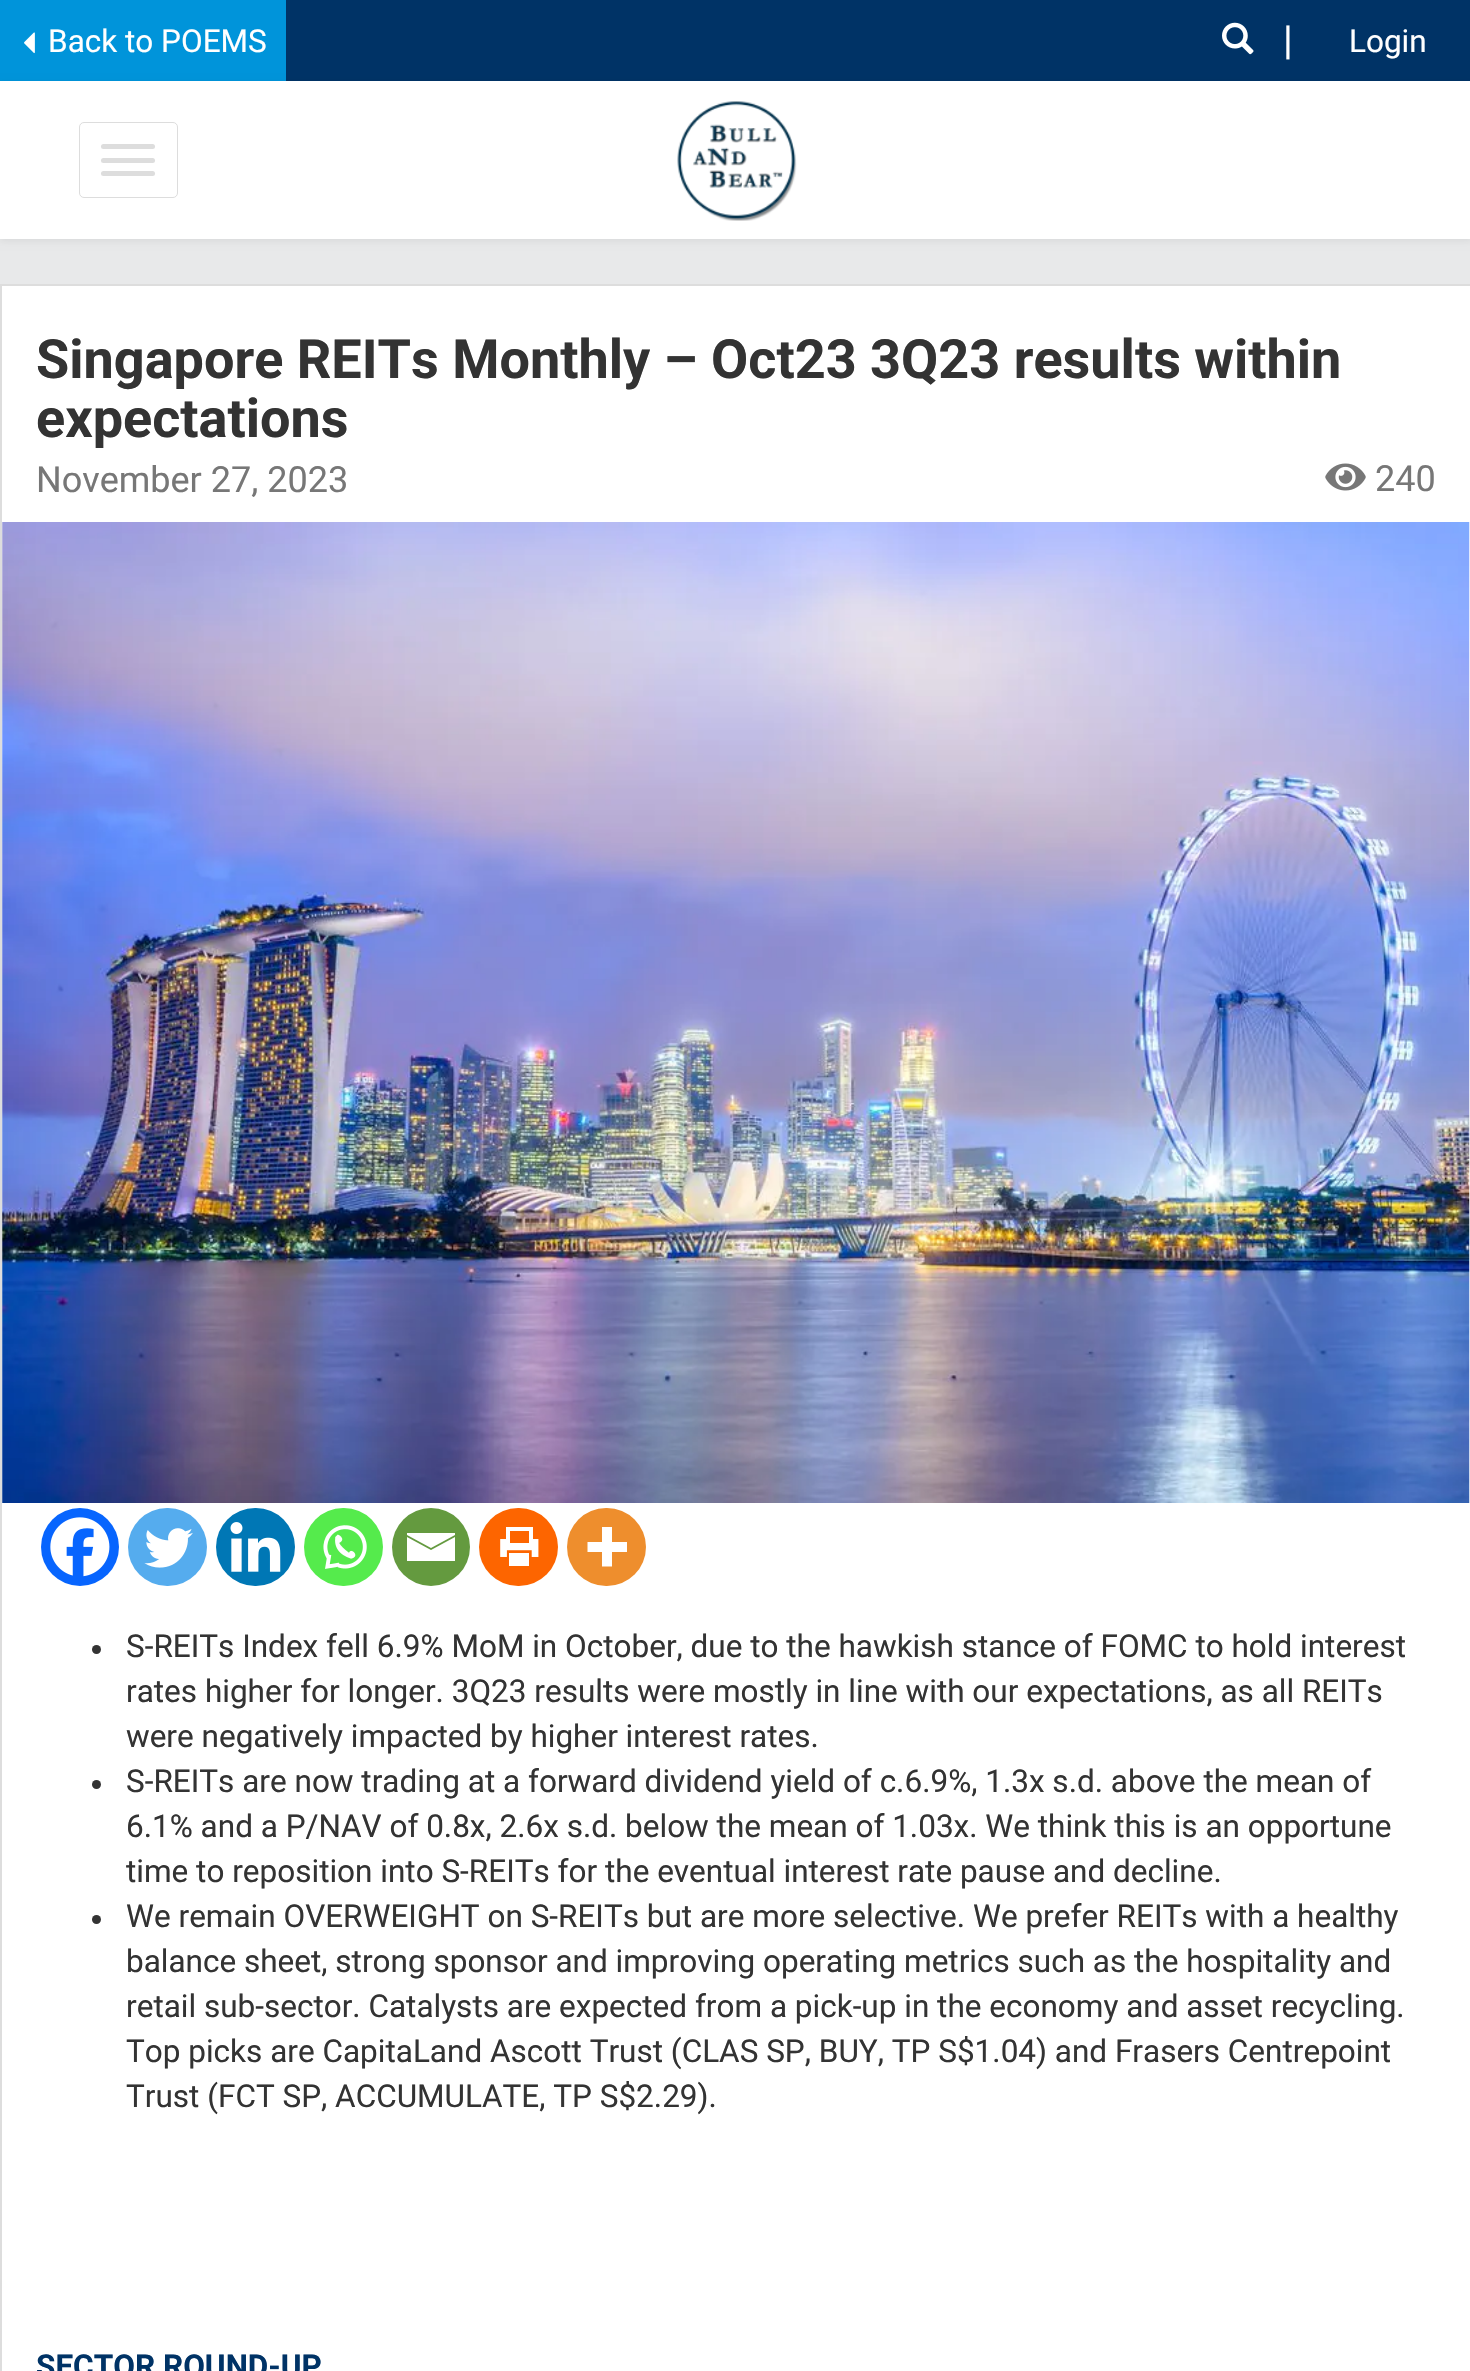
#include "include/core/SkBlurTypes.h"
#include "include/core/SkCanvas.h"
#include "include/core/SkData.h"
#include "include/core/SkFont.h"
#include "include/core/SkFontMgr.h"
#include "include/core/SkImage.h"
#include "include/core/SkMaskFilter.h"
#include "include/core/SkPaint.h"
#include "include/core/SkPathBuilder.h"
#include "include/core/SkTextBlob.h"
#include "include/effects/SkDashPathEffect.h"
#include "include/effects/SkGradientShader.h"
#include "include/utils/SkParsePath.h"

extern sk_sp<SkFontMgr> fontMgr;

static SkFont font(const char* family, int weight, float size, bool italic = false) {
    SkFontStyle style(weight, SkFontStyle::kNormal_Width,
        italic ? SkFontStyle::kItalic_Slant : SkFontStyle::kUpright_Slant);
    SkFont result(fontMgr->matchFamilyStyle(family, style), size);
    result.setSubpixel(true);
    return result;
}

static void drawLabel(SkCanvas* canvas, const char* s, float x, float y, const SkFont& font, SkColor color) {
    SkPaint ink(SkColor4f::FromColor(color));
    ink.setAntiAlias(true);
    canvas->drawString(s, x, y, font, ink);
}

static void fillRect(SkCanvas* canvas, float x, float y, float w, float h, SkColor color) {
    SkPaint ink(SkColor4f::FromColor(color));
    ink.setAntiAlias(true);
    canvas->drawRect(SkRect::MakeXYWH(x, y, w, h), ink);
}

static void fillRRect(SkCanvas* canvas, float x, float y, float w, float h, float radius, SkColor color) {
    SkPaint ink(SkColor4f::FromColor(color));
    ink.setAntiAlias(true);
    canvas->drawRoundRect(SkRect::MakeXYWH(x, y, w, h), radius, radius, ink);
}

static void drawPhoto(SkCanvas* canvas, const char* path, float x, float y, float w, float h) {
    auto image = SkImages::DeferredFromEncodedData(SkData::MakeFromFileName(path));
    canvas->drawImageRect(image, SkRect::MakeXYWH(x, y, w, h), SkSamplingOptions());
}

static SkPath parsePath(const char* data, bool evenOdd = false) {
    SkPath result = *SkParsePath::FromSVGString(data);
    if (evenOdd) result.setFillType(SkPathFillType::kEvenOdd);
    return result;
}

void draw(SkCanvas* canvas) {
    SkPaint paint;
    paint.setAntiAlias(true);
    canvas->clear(0xFFE8E9EA);
    fillRect(canvas, 286, 0, 1184, 81, 0xFF003366);
    fillRect(canvas, 0, 0, 286, 81, 0xFF0094DA);
    drawPhoto(canvas, "assets/img1.png", 24, 32, 11, 22);
    SkFont font1 = font("Roboto", 400, 31.5f);
    drawLabel(canvas, "Back to POEMS", 48, 52, font1, 0xFFFFFFFF);
    drawPhoto(canvas, "assets/img2.png", 1222, 22, 32, 33);
    SkFont font2 = font("Roboto", 400, 40);
    drawLabel(canvas, "|", 1283, 54, font2, 0xFFFFFFFF);
    drawLabel(canvas, "Login", 1349, 52, font1, 0xFFFFFFFF);
    paint.setColor(0x12000000);
    paint.setMaskFilter(SkMaskFilter::MakeBlur(kNormal_SkBlurStyle, 3.5f));
    canvas->drawRect(SkRect::MakeXYWH(0, 83, 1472, 158), paint);
    paint.setMaskFilter(nullptr);
    fillRect(canvas, 0, 81, 1470, 158, 0xFFFFFFFF);
    paint.setStroke(true);
    paint.setStrokeWidth(1);
    paint.setColor(0xFFDDDDDD);
    canvas->drawRoundRect(SkRect::MakeXYWH(79.5f, 122.5f, 98, 75), 4.5f, 4.5f, paint);
    fillRRect(canvas, 101, 144, 54, 5, 2.5f, 0xFFDDDDDD);
    fillRRect(canvas, 101, 158, 54, 5, 2.5f, 0xFFDDDDDD);
    fillRRect(canvas, 101, 171, 54, 5, 2.5f, 0xFFDDDDDD);
    drawPhoto(canvas, "assets/img3.png", 677, 101, 120, 120);
    paint.setStroke(false);
    paint.setColor(0xFFFFFFFF);
    canvas->drawRect(SkRect::MakeXYWH(1, 285, 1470, 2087), paint);
    paint.setStroke(true);
    paint.setStrokeWidth(2);
    paint.setColor(0xFFDDDDDD);
    canvas->drawRect(SkRect::MakeXYWH(1, 285, 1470, 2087), paint);
    SkFont font3 = font("Roboto", 700, 54);
    drawLabel(canvas, "Singapore REITs Monthly – Oct23 3Q23 results within", 36, 378, font3, 0xFF333333);
    drawLabel(canvas, "expectations", 36, 437, font3, 0xFF333333);
    SkFont font4 = font("Roboto", 400, 36);
    drawLabel(canvas, "November 27, 2023", 36, 492, font4, 0xFF777777);
    drawPhoto(canvas, "assets/img4.png", 1325, 463, 41, 28);
    drawLabel(canvas, "240", 1375, 491, font4, 0xFF777777);
    drawPhoto(canvas, "assets/img5.png", 2, 522, 1468, 981);
    paint.setStroke(false);
    paint.setColor(0xFF0765FE);
    canvas->drawCircle(80, 1547, 39, paint);
    drawPhoto(canvas, "assets/img6.png", 50, 1517, 60, 60);
    fillRRect(canvas, 128, 1508, 79, 78, 39, 0xFF55ACEE);
    drawPhoto(canvas, "assets/img7.png", 144, 1528, 49, 40);
    fillRRect(canvas, 216, 1508, 79, 78, 39, 0xFF0077B5);
    drawPhoto(canvas, "assets/img8.png", 230, 1522, 51, 50);
    fillRRect(canvas, 304, 1508, 79, 78, 39, 0xFF55EB4C);
    drawPhoto(canvas, "assets/img9.png", 323, 1525, 44, 44);
    paint.setColor(0xFF649A3F);
    canvas->drawCircle(431, 1547, 39, paint);
    paint.setColor(0xFFFFFFFF);
    canvas->drawPath(parsePath("M405 1533H455V1535L431 1548L407 1535V1533M407 1537L431 1550L455 1537V1561H407V1537"), paint);
    fillRRect(canvas, 479, 1508, 79, 78, 39, 0xFFFD6500);
    drawPhoto(canvas, "assets/img10.png", 500, 1527, 39, 39);
    fillRRect(canvas, 567, 1508, 79, 78, 39, 0xFFEE8E2D);
    canvas->drawPath(parsePath("M612 1542V1527H602V1542H587.5V1552H602V1566.5H612V1552H627V1542Z", true), paint);
    paint.setColor(0xFF333333);
    canvas->drawCircle(96.5f, 1649.5f, 4.5f, paint);
    drawLabel(canvas, "S-REITs Index fell 6.9% MoM in October, due to the hawkish stance of FOMC to hold interest", 126, 1657, font1, 0xFF333333);
    drawLabel(canvas, "rates higher for longer. 3Q23 results were mostly in line with our expectations, as all REITs", 126, 1702, font1, 0xFF333333);
    drawLabel(canvas, "were negatively impacted by higher interest rates.", 126, 1747, font1, 0xFF333333);
    canvas->drawCircle(96.5f, 1784.5f, 4.5f, paint);
    drawLabel(canvas, "S-REITs are now trading at a forward dividend yield of c.6.9%, 1.3x s.d. above the mean of", 126, 1792, font1, 0xFF333333);
    drawLabel(canvas, "6.1% and a P/NAV of 0.8x, 2.6x s.d. below the mean of 1.03x. We think this is an opportune", 126, 1837, font1, 0xFF333333);
    drawLabel(canvas, "time to reposition into S-REITs for the eventual interest rate pause and decline.", 126, 1882, font1, 0xFF333333);
    canvas->drawCircle(96.5f, 1919.5f, 4.5f, paint);
    drawLabel(canvas, "We remain OVERWEIGHT on S-REITs but are more selective. We prefer REITs with a healthy", 126, 1927, font1, 0xFF333333);
    drawLabel(canvas, "balance sheet, strong sponsor and improving operating metrics such as the hospitality and", 126, 1972, font1, 0xFF333333);
    drawLabel(canvas, "retail sub-sector. Catalysts are expected from a pick-up in the economy and asset recycling.", 126, 2017, font1, 0xFF333333);
    drawLabel(canvas, "Top picks are CapitaLand Ascott Trust (CLAS SP, BUY, TP S$1.04) and Frasers Centrepoint", 126, 2062, font1, 0xFF333333);
    drawLabel(canvas, "Trust (FCT SP, ACCUMULATE, TP S$2.29).", 126, 2107, font1, 0xFF333333);
    SkFont font5 = font("Roboto", 700, 31.5f);
    drawLabel(canvas, "SECTOR ROUND-UP", 36, 2377, font5, 0xFF003366);
}
